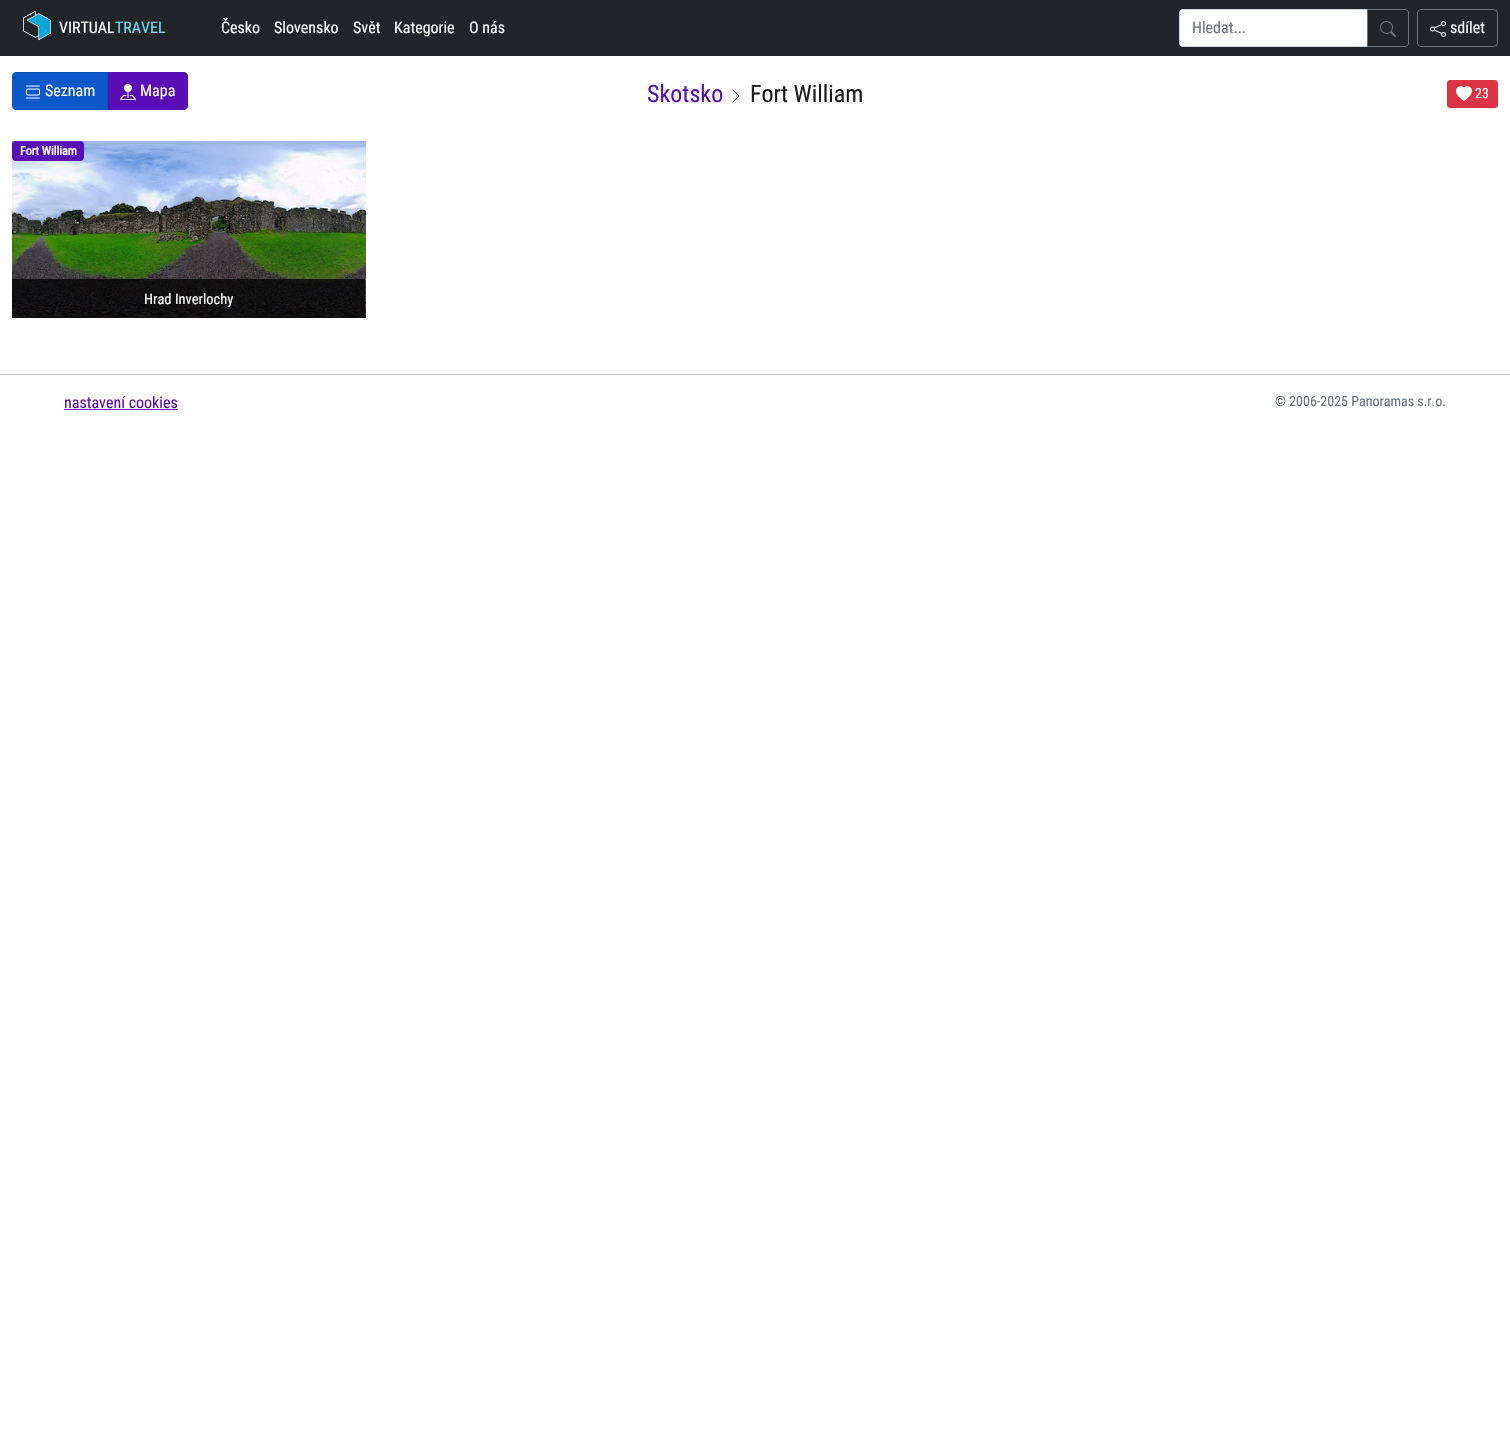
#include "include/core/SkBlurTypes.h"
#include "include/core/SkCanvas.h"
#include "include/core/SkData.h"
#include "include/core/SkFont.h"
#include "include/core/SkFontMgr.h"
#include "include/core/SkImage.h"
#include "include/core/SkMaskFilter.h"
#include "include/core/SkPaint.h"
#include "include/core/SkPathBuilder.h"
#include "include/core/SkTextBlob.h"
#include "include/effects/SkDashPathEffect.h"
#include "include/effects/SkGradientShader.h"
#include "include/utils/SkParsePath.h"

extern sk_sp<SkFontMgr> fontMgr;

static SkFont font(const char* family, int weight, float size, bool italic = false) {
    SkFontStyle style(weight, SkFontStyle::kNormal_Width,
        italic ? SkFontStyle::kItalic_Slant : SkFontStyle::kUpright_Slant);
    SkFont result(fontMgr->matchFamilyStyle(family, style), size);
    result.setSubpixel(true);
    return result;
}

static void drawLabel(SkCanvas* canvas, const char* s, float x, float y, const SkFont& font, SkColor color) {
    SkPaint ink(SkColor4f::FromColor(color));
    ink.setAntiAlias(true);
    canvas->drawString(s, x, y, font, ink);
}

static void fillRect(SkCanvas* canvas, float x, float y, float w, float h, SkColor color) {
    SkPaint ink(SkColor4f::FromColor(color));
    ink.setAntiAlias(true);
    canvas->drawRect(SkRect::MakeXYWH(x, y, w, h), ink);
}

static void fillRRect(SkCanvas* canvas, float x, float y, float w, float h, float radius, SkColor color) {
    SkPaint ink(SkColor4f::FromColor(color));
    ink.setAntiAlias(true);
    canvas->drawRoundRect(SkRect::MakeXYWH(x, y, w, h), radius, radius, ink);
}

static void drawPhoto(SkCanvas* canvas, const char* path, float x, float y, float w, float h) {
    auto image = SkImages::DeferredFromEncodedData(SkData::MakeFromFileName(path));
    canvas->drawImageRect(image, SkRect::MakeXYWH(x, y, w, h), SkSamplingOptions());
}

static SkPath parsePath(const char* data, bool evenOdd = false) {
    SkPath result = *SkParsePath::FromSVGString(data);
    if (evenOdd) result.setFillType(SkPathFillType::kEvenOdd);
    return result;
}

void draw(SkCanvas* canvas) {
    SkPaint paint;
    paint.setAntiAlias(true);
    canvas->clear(0xFFFFFFFF);
    fillRect(canvas, 0, 0, 1510, 56, 0xFF212529);
    drawPhoto(canvas, "assets/img1.png", 23, 10, 28, 31);
    SkFont font1 = font("Roboto Condensed", 400, 16);
    drawLabel(canvas, "VIRTUAL", 59, 33, font1, 0xFFFFFFFF);
    drawLabel(canvas, "TRAVEL", 115, 33, font1, 0xFF72DDF7);
    drawLabel(canvas, "Česko", 221, 33, font1, 0xFFFFFFFF);
    drawLabel(canvas, "Slovensko", 274, 33, font1, 0xFFFFFFFF);
    drawLabel(canvas, "Svět", 353, 33, font1, 0xFFFFFFFF);
    drawLabel(canvas, "Kategorie", 394, 33, font1, 0xFFFFFFFF);
    drawLabel(canvas, "O nás", 469, 33, font1, 0xFFFFFFFF);
    paint.setColor(0xFFFFFFFF);
    canvas->drawPath(parsePath("M1183 9.5H1367.5V46.5H1183C1181 46.5 1179.5 45 1179.5 43V13C1179.5 11 1181 9.5 1183 9.5Z"), paint);
    paint.setStroke(true);
    paint.setStrokeWidth(1);
    paint.setColor(0xFFCED4DA);
    canvas->drawPath(parsePath("M1183 9.5H1367.5V46.5H1183C1181 46.5 1179.5 45 1179.5 43V13C1179.5 11 1181 9.5 1183 9.5Z"), paint);
    drawLabel(canvas, "Hledat...", 1192, 33, font1, 0xFF6C757D);
    paint.setColor(0xFF6C757D);
    canvas->drawPath(parsePath("M1367.5 9.5H1405C1407 9.5 1408.5 11 1408.5 13V43C1408.5 45 1407 46.5 1405 46.5H1367.5Z"), paint);
    drawPhoto(canvas, "assets/img2.png", 1380, 21, 16, 16);
    canvas->drawRoundRect(SkRect::MakeXYWH(1417.5f, 9.5f, 80, 37), 3.5f, 3.5f, paint);
    drawPhoto(canvas, "assets/img3.png", 1430, 21, 16, 16);
    drawLabel(canvas, "sdílet", 1450, 33, font1, 0xFFFFFFFF);
    paint.setStroke(false);
    paint.setColor(0xFF590EB5);
    canvas->drawPath(parsePath("M107.5 72.5H184C186 72.5 187.5 74 187.5 76V106C187.5 108 186 109.5 184 109.5H107.5Z"), paint);
    paint.setStroke(true);
    canvas->drawPath(parsePath("M107.5 72.5H184C186 72.5 187.5 74 187.5 76V106C187.5 108 186 109.5 184 109.5H107.5Z"), paint);
    paint.setStroke(false);
    paint.setColor(0xFF0A58CA);
    canvas->drawPath(parsePath("M16 72.5H107.5V109.5H16C14 109.5 12.5 108 12.5 106V76C12.5 74 14 72.5 16 72.5Z"), paint);
    paint.setStroke(true);
    paint.setColor(0xFF0A53BE);
    canvas->drawPath(parsePath("M16 72.5H107.5V109.5H16C14 109.5 12.5 108 12.5 106V76C12.5 74 14 72.5 16 72.5Z"), paint);
    drawPhoto(canvas, "assets/img4.png", 26, 85, 14, 14);
    drawLabel(canvas, "Seznam", 45, 96, font1, 0xFFFFFFFF);
    drawPhoto(canvas, "assets/img5.png", 120, 84, 16, 16);
    drawLabel(canvas, "Mapa", 140, 96, font1, 0xFFFFFFFF);
    SkFont font2 = font("Roboto Condensed", 400, 24);
    drawLabel(canvas, "Skotsko", 647, 102, font2, 0xFF590EB5);
    drawPhoto(canvas, "assets/img6.png", 732, 89, 8, 14);
    drawLabel(canvas, "Fort William", 750, 102, font2, 0xFF1A1A1A);
    paint.setStroke(false);
    paint.setColor(0xFFDC3545);
    canvas->drawRoundRect(SkRect::MakeXYWH(1447.5f, 80.5f, 50, 27), 2.5f, 2.5f, paint);
    paint.setStroke(true);
    canvas->drawRoundRect(SkRect::MakeXYWH(1447.5f, 80.5f, 50, 27), 2.5f, 2.5f, paint);
    paint.setStroke(false);
    paint.setColor(0xFFFFFFFF);
    canvas->drawPath(parsePath("M1464 87.5C1468.5 83 1479.5 90.5 1464 101C1448.5 90.5 1459.5 83 1464 87.5Z", true), paint);
    SkFont font3 = font("Roboto Condensed", 400, 14);
    drawLabel(canvas, "23", 1475, 98, font3, 0xFFFFFFFF);
    drawPhoto(canvas, "assets/img7.png", 12, 141, 354, 177);
    fillRRect(canvas, 12, 141, 72, 20, 4, 0xFF590EB5);
    SkFont font4 = font("Roboto Condensed", 700, 12);
    drawLabel(canvas, "Fort William", 20, 155, font4, 0xFFFFFFFF);
    fillRect(canvas, 12, 279, 353, 39, 0x80000000);
    fillRect(canvas, 12, 279, 353, 39, 0x80000000);
    SkFont font5 = font("Roboto Condensed", 400, 14.5f);
    drawLabel(canvas, "Hrad Inverlochy", 144, 304, font5, 0xFFFFFFFF);
    fillRect(canvas, 0, 374, 1510, 1, 0xFFC6C6C6);
    drawLabel(canvas, "nastavení cookies", 64, 408, font1, 0xFF590EB5);
    fillRect(canvas, 64, 409, 114, 1, 0xFF590EB5);
    drawLabel(canvas, "© 2006-2025 Panoramas s.r.o.", 1275, 406, font3, 0xFF6C757D);
}
